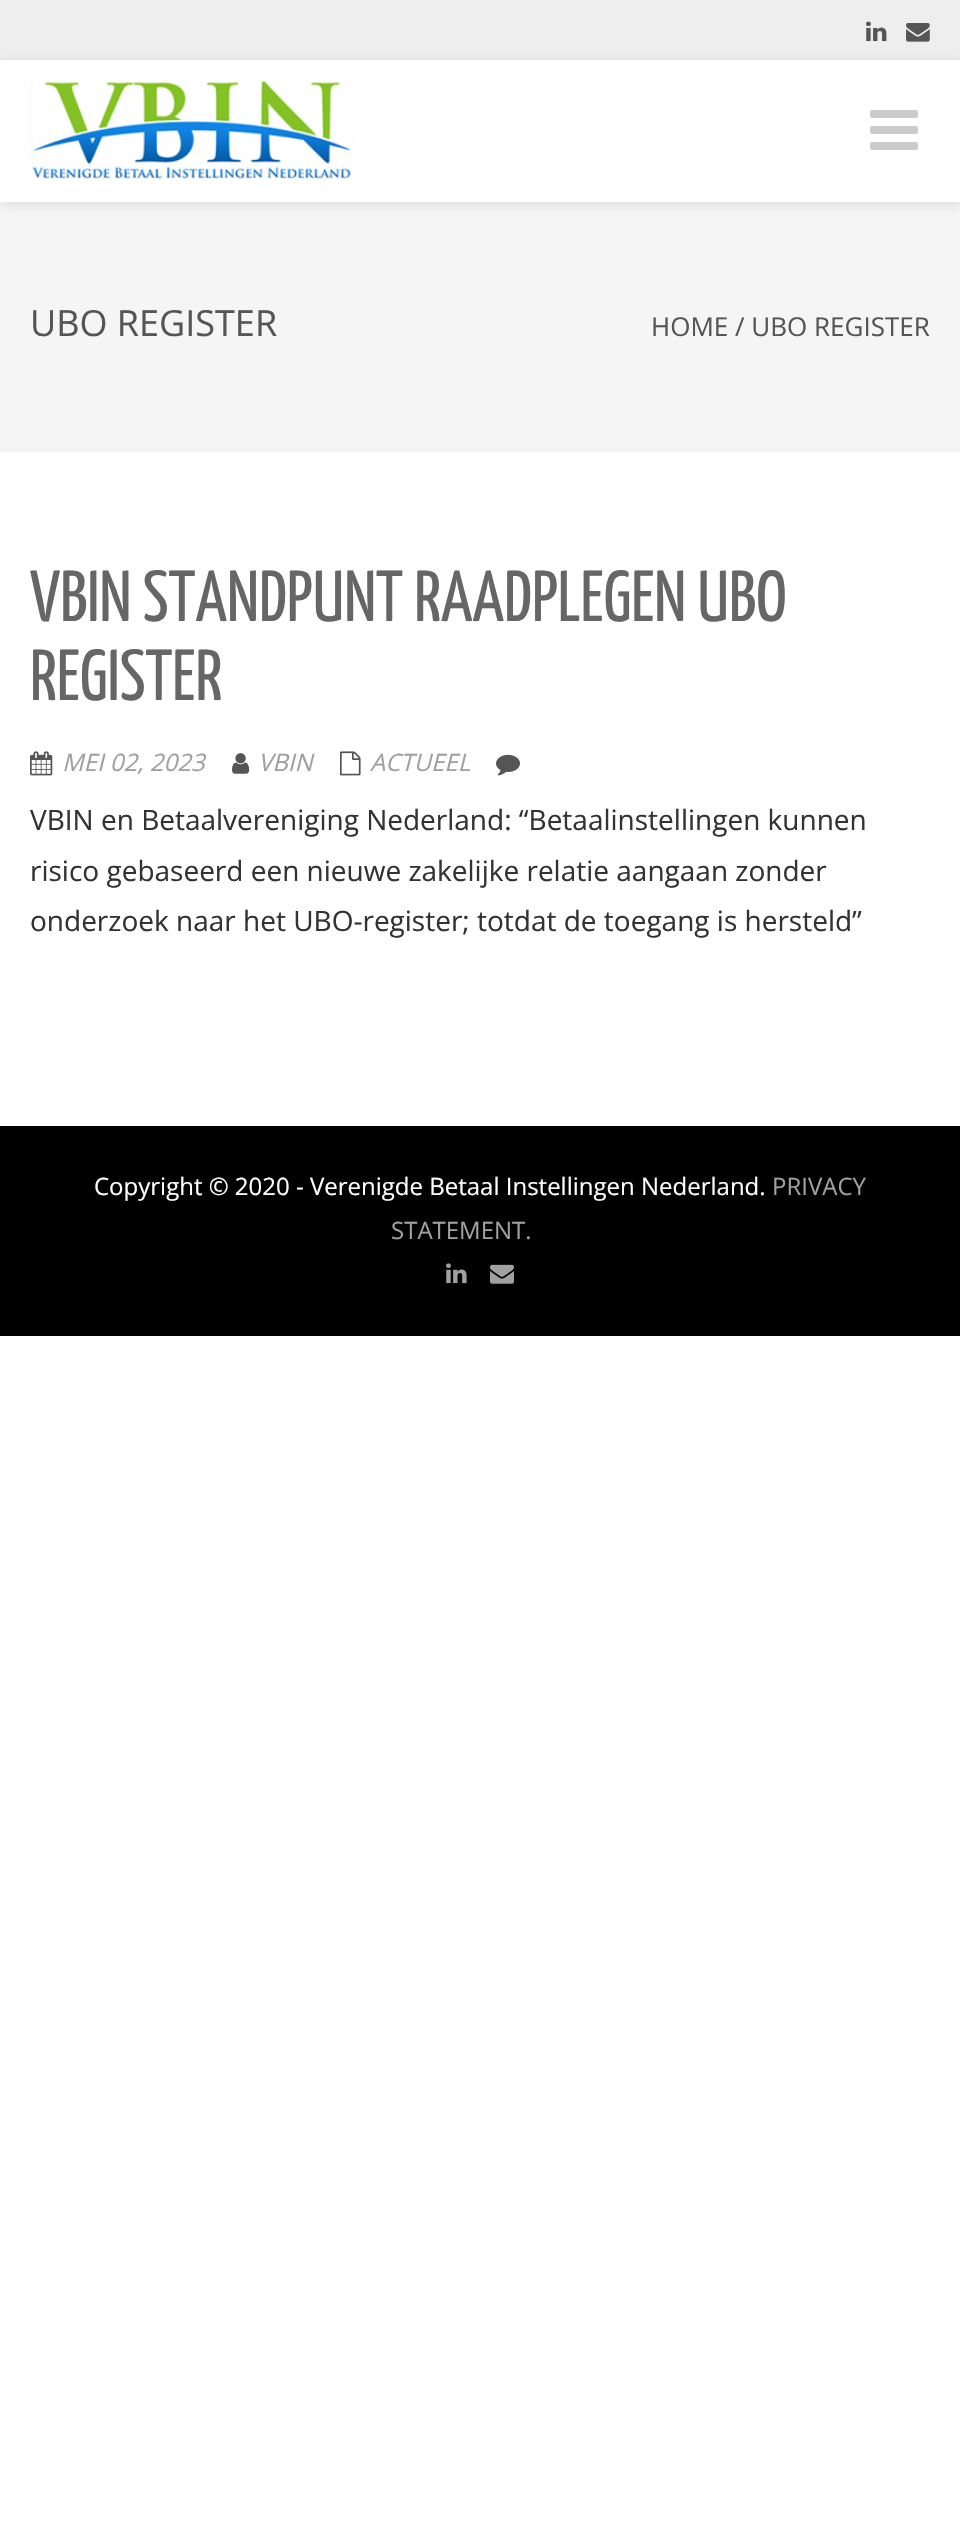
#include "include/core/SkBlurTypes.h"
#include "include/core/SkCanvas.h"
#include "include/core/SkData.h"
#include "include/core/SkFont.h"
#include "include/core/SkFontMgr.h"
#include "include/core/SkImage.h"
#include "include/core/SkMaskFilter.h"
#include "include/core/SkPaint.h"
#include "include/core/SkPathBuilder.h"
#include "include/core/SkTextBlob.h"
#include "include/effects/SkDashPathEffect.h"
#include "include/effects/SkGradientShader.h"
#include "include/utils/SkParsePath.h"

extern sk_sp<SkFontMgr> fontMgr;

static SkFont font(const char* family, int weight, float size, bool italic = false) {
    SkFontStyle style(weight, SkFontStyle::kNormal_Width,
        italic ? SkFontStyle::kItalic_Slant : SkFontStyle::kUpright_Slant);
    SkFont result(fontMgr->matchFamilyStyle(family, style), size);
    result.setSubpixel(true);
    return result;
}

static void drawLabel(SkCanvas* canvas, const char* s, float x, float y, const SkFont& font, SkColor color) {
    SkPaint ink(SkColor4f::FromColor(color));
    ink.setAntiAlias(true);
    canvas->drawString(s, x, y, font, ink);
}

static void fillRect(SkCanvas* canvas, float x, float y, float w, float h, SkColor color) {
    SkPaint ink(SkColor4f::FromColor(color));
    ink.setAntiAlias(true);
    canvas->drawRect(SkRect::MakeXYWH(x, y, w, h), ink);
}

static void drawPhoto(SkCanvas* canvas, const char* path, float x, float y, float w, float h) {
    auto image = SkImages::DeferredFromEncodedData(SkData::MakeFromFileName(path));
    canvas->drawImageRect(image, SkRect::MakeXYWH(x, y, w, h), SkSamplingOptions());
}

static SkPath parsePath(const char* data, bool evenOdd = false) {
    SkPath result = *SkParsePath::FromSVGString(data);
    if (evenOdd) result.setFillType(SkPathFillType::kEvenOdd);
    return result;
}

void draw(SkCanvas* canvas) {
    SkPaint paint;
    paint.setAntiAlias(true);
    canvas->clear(0xFFFFFFFF);
    fillRect(canvas, 0, 0, 960, 60, 0xFFEEEEEE);
    drawPhoto(canvas, "assets/img1.png", 866, 21, 21, 21);
    drawPhoto(canvas, "assets/img2.png", 906, 23, 24, 19);
    fillRect(canvas, 0, 202, 960, 250, 0xFFF5F5F5);
    canvas->save();
    canvas->clipPath(parsePath("M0 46H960V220H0ZM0 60H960V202H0Z", true), true);
    paint.setColor(0x33646464);
    paint.setMaskFilter(SkMaskFilter::MakeBlur(kNormal_SkBlurStyle, 5));
    canvas->drawRect(SkRect::MakeXYWH(2, 62, 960, 142), paint);
    paint.setMaskFilter(nullptr);
    canvas->restore();
    drawPhoto(canvas, "assets/img3.png", 30, 81, 324, 98);
    drawPhoto(canvas, "assets/img4.png", 870, 110, 48, 40);
    SkFont font1 = font("Open Sans", 400, 36);
    drawLabel(canvas, "UBO REGISTER", 30, 336, font1, 0xFF555555);
    SkFont font2 = font("Open Sans", 400, 26);
    drawLabel(canvas, "HOME / UBO REGISTER", 651, 336, font2, 0xFF555555);
    SkFont font3 = font("Yanone Kaffeesatz", 200, 72);
    drawLabel(canvas, "VBIN STANDPUNT RAADPLEGEN UBO", 30, 621, font3, 0xFF666666);
    drawLabel(canvas, "REGISTER", 30, 700, font3, 0xFF666666);
    drawPhoto(canvas, "assets/img5.png", 30, 751, 23, 25);
    SkFont font4 = font("Open Sans", 400, 24, true);
    drawLabel(canvas, "MEI 02, 2023", 62, 771, font4, 0xFFA0A0A0);
    drawPhoto(canvas, "assets/img6.png", 232, 753, 18, 21);
    drawLabel(canvas, "VBIN", 258, 771, font4, 0xFFA0A0A0);
    drawPhoto(canvas, "assets/img7.png", 340, 751, 21, 25);
    drawLabel(canvas, "ACTUEEL", 370, 771, font4, 0xFFA0A0A0);
    drawPhoto(canvas, "assets/img8.png", 496, 754, 24, 22);
    SkFont font5 = font("Open Sans", 400, 28);
    drawLabel(canvas, "VBIN en Betaalvereniging Nederland: “Betaalinstellingen kunnen", 30, 830, font5, 0xFF333333);
    drawLabel(canvas, "risico gebaseerd een nieuwe zakelijke relatie aangaan zonder", 30, 881, font5, 0xFF333333);
    drawLabel(canvas, "onderzoek naar het UBO-register; totdat de toegang is hersteld”", 30, 931, font5, 0xFF333333);
    fillRect(canvas, 0, 1126, 960, 210, 0xFF000000);
    SkFont font6 = font("Open Sans", 400, 24);
    drawLabel(canvas, "Copyright © 2020 - Verenigde Betaal Instellingen Nederland.", 94, 1195, font6, 0xFFFFFFFF);
    drawLabel(canvas, "PRIVACY", 772, 1195, font6, 0xFFA0A0A0);
    drawLabel(canvas, "STATEMENT.", 391, 1239, font6, 0xFFA0A0A0);
    drawPhoto(canvas, "assets/img9.png", 446, 1263, 21, 21);
    drawPhoto(canvas, "assets/img10.png", 490, 1264, 24, 20);
}
